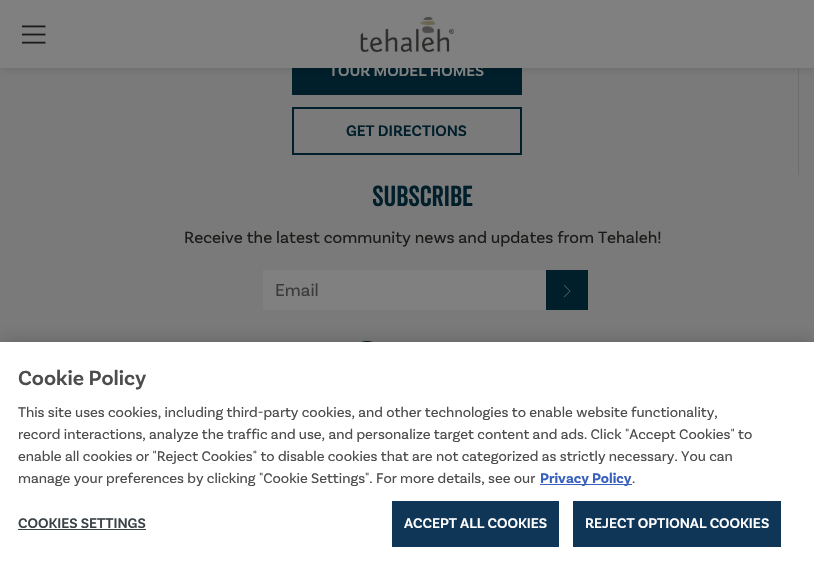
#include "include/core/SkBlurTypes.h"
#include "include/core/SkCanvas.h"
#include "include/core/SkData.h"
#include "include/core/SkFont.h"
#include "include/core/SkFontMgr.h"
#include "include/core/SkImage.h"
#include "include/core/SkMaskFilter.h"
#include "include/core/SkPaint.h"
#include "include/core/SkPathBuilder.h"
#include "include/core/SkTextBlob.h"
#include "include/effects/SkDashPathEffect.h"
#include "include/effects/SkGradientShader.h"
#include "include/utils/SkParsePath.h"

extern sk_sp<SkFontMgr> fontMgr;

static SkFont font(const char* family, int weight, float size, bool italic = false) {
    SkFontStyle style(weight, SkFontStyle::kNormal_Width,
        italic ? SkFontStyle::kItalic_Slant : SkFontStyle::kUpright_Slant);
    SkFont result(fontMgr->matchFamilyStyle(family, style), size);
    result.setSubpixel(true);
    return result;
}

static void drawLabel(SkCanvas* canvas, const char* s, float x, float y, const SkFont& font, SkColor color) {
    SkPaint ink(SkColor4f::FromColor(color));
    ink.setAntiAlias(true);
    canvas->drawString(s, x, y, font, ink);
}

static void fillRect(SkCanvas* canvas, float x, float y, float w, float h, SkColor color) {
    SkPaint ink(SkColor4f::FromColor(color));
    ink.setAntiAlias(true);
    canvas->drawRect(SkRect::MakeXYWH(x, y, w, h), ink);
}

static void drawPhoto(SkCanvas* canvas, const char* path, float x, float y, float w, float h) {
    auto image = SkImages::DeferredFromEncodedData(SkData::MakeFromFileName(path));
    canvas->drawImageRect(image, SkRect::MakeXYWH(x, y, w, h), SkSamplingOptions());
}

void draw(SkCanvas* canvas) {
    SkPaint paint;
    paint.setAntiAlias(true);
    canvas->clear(0xFF7A7A7A);
    fillRect(canvas, 798, 68, 1, 107, 0xFF6D6D6D);
    fillRect(canvas, 292, 68, 230, 27, 0xFF001F2A);
    paint.setColor(0x1A000000);
    paint.setMaskFilter(SkMaskFilter::MakeBlur(kNormal_SkBlurStyle, 3.5f));
    canvas->drawRect(SkRect::MakeXYWH(2, 2, 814, 68), paint);
    paint.setMaskFilter(nullptr);
    fillRect(canvas, 0, 0, 814, 68, 0xFF808080);
    drawPhoto(canvas, "assets/img1.png", 22, 25, 24, 19);
    drawPhoto(canvas, "assets/img2.png", 360, 16, 95, 37);
    SkFont font1 = font("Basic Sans", 600, 16);
    drawLabel(canvas, "TOUR MODEL HOMES", 329, 76, font1, 0xFF808080);
    paint.setStroke(true);
    paint.setStrokeWidth(2);
    paint.setColor(0xFF001F2A);
    canvas->drawRect(SkRect::MakeXYWH(293, 108, 228, 46), paint);
    drawLabel(canvas, "GET DIRECTIONS", 346, 136, font1, 0xFF001F2A);
    SkFont font2 = font("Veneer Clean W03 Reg", 200, 28);
    drawLabel(canvas, "SUBSCRIBE", 372, 206, font2, 0xFF001F2A);
    SkFont font3 = font("Basic Sans", 400, 17);
    drawLabel(canvas, "Receive the latest community news and updates from Tehaleh!", 184, 243, font3, 0xFF1C1B19);
    fillRect(canvas, 263, 270, 283, 40, 0xFF808080);
    SkFont font4 = font("Basic Sans", 400, 18);
    drawLabel(canvas, "Email", 275, 296, font4, 0xFF3B3B3B);
    fillRect(canvas, 546, 270, 42, 40, 0xFF001F2A);
    drawPhoto(canvas, "assets/img3.png", 563, 285, 8, 13);
    drawPhoto(canvas, "assets/img4.png", 361, 341, 12, 1);
    paint.setStroke(false);
    paint.setColor(0x33000000);
    paint.setMaskFilter(SkMaskFilter::MakeBlur(kNormal_SkBlurStyle, 9));
    canvas->drawRect(SkRect::MakeXYWH(0, 342, 814, 226), paint);
    paint.setMaskFilter(nullptr);
    fillRect(canvas, 0, 342, 814, 226, 0xFFFFFFFF);
    SkFont font5 = font("Basic Sans", 600, 21.5f);
    drawLabel(canvas, "Cookie Policy", 18, 385, font5, 0xFF4D4D4D);
    SkFont font6 = font("Basic Sans", 400, 14.63f);
    drawLabel(canvas, "This site uses cookies, including third-party cookies, and other technologies to enable website functionality,", 18, 417, font6, 0xFF4D4D4D);
    drawLabel(canvas, "record interactions, analyze the traffic and use, and personalize target content and ads. Click \"Accept Cookies\" to", 18, 439, font6, 0xFF4D4D4D);
    drawLabel(canvas, "enable all cookies or \"Reject Cookies\" to disable cookies that are not categorized as strictly necessary. You can", 18, 461, font6, 0xFF4D4D4D);
    drawLabel(canvas, "manage your preferences by clicking \"Cookie Settings\". For more details, see our", 18, 483, font6, 0xFF4D4D4D);
    fillRect(canvas, 540, 484, 92, 1, 0xFF3860BE);
    SkFont font7 = font("Basic Sans", 700, 14.63f);
    drawLabel(canvas, "Privacy Policy", 540, 483, font7, 0xFF3860BE);
    drawLabel(canvas, ".", 632, 483, font6, 0xFF4D4D4D);
    SkFont font8 = font("Basic Sans", 600, 14.63f);
    drawLabel(canvas, "COOKIES SETTINGS", 18, 528, font8, 0xFF3C4347);
    fillRect(canvas, 18, 529, 128, 1, 0xFF3C4347);
    fillRect(canvas, 392, 501, 167, 46, 0xFF0F3557);
    drawLabel(canvas, "ACCEPT ALL COOKIES", 404, 528, font8, 0xFFFFFFFF);
    fillRect(canvas, 573, 501, 208, 46, 0xFF0F3557);
    drawLabel(canvas, "REJECT OPTIONAL COOKIES", 585, 528, font8, 0xFFFFFFFF);
}
